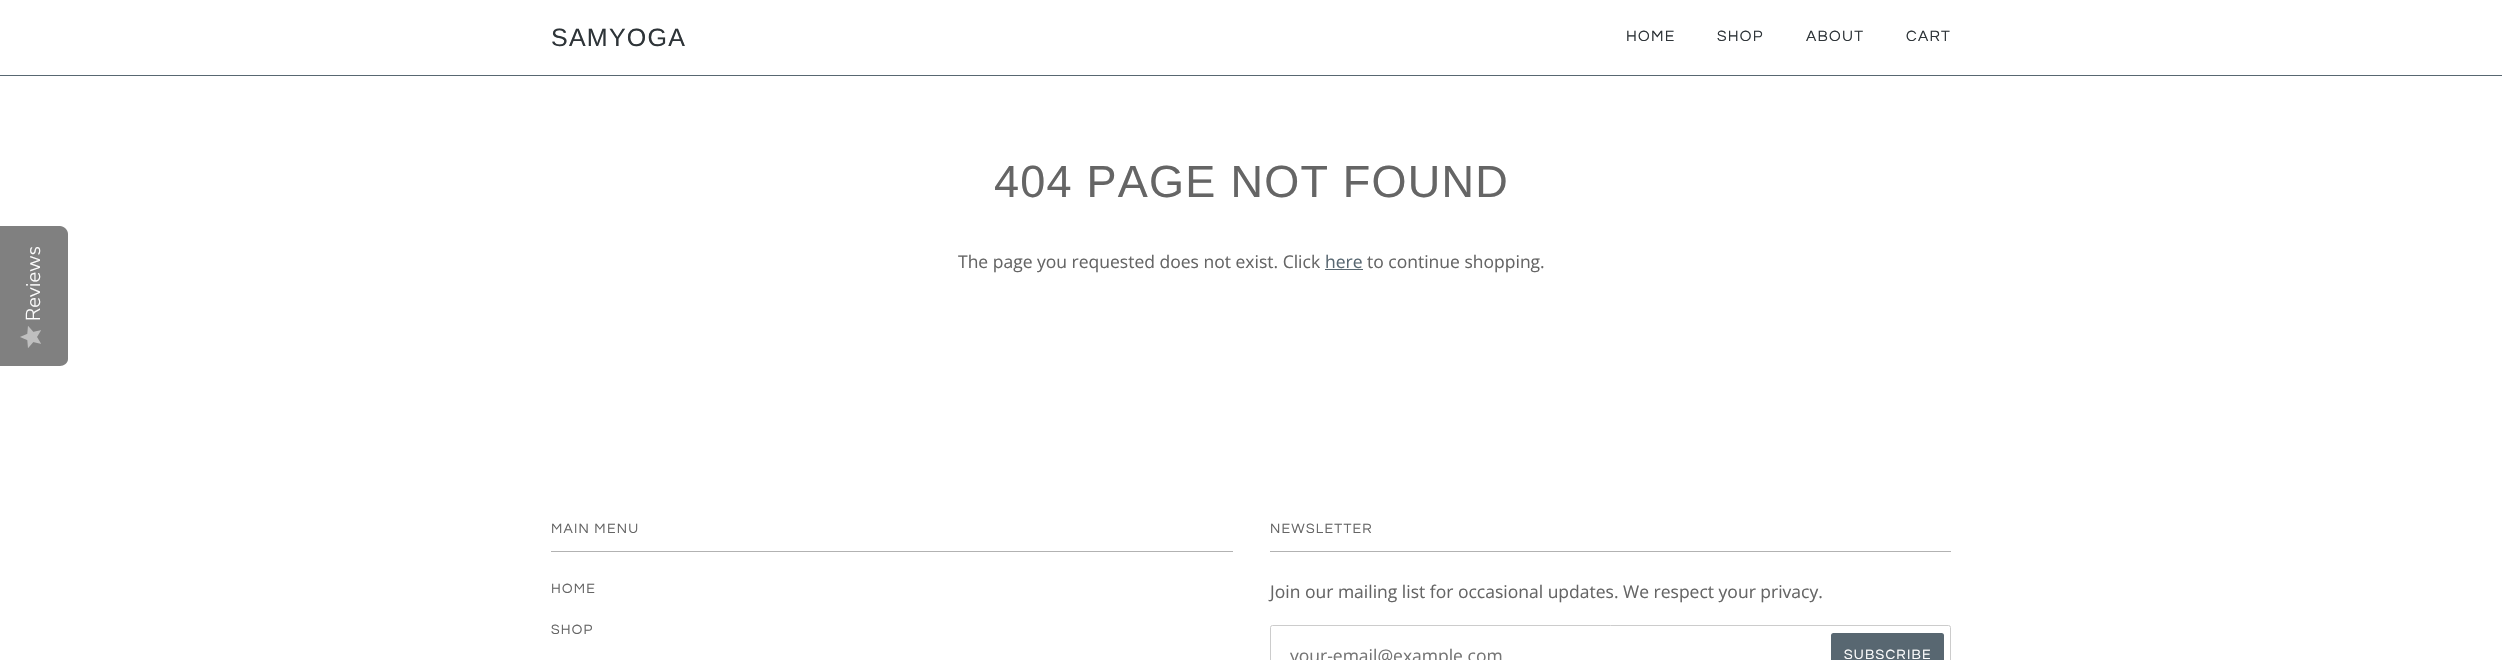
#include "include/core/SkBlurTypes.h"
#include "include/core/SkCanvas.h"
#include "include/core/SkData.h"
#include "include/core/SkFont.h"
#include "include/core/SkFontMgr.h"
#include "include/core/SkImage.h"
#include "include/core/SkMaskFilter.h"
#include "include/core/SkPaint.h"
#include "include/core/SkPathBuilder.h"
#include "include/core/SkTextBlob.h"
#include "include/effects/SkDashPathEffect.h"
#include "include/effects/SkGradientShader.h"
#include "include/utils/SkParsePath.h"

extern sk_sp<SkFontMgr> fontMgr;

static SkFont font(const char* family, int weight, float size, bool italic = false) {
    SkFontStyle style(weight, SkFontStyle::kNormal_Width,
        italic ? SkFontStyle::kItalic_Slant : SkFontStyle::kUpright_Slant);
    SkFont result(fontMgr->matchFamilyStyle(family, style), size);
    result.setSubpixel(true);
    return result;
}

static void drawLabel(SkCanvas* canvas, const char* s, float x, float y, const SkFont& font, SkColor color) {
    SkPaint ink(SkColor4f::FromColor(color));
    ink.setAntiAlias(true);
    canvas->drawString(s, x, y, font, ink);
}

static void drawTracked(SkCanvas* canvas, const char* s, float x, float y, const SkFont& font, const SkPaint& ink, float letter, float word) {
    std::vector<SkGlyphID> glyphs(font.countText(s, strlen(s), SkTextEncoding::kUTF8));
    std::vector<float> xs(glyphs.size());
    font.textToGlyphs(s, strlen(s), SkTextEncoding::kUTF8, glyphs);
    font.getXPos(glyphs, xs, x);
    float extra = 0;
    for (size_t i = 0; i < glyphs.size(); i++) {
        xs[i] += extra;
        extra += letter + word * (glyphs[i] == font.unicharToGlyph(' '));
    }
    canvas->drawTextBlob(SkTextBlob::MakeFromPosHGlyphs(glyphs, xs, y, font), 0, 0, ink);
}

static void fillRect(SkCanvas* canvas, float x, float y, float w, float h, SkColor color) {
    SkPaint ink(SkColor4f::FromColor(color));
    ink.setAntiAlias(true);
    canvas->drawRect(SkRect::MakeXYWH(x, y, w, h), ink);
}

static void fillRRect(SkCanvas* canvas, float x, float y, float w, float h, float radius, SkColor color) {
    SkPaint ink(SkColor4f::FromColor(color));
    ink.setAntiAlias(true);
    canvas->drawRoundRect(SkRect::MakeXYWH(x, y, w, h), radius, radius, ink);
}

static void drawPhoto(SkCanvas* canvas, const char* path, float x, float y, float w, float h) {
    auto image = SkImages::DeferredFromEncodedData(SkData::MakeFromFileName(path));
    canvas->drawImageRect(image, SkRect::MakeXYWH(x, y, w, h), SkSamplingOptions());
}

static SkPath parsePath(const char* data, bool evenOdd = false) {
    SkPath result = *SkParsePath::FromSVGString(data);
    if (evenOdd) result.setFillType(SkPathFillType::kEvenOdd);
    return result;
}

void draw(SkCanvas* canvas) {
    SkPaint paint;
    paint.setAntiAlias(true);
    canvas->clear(0xFFFFFFFF);
    fillRect(canvas, 0, 75, 2502, 1, 0xFF586771);
    SkFont font1 = font("Liberation Sans", 400, 25);
    paint.setColor(0xFF2E3438);
    drawTracked(canvas, "SAMYOGA", 551, 46, font1, paint, 1.25f, 0);
    SkFont font2 = font("Questrial", 400, 15.5f);
    drawTracked(canvas, "HOME", 1626, 41, font2, paint, 1.25f, 0);
    drawTracked(canvas, "SHOP", 1717, 41, font2, paint, 1.25f, 0);
    drawTracked(canvas, "ABOUT", 1806, 41, font2, paint, 1.25f, 0);
    drawTracked(canvas, "CART", 1906, 41, font2, paint, 1.25f, 0);
    SkFont font3 = font("Liberation Sans", 400, 45);
    paint.setColor(0xFF656565);
    drawTracked(canvas, "404 PAGE NOT FOUND", 994, 197, font3, paint, 1.25f, 0);
    SkFont font4 = font("Open Sans", 400, 17.5f);
    drawLabel(canvas, "The page you requested does not exist. Click", 958, 268, font4, 0xFF656565);
    drawLabel(canvas, "here", 1325, 268, font4, 0xFF586771);
    fillRect(canvas, 1325, 269, 38, 1, 0xFF586771);
    drawLabel(canvas, "to continue shopping.", 1367, 268, font4, 0xFF656565);
    paint.setColor(0xFF808080);
    canvas->drawPath(parsePath("M0 366V226H60C64 226 68 230 68 234V359C68 363 64 366 60 366Z"), paint);
    SkFont font5 = font("Nunito Sans", 300, 20);
    canvas->save();
    canvas->rotate(-90, 40, 321);
    drawLabel(canvas, "Reviews", 40, 321, font5, 0xFFFFFFFF);
    canvas->restore();
    drawPhoto(canvas, "assets/img1.png", 20, 326, 21, 22);
    SkFont font6 = font("Questrial", 400, 14);
    paint.setColor(0xFF656565);
    drawTracked(canvas, "MAIN MENU", 551, 533, font6, paint, 1.25f, 0);
    fillRect(canvas, 551, 551, 682, 1, 0xFFB2B2B2);
    drawTracked(canvas, "HOME", 551, 593, font6, paint, 1.25f, 0);
    drawTracked(canvas, "SHOP", 551, 634, font6, paint, 1.25f, 0);
    drawTracked(canvas, "NEWSLETTER", 1270, 533, font6, paint, 1.25f, 0);
    fillRect(canvas, 1270, 551, 681, 1, 0xFFB2B2B2);
    drawLabel(canvas, "Join our mailing list for occasional updates. We respect your privacy.", 1270, 598, font4, 0xFF656565);
    paint.setStroke(true);
    paint.setStrokeWidth(1);
    paint.setColor(0xFFCCCCCC);
    canvas->drawRoundRect(SkRect::MakeXYWH(1270.5f, 625.5f, 680, 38), 2, 2, paint);
    drawLabel(canvas, "your-email@example.com", 1290, 662, font4, 0xFF757575);
    fillRRect(canvas, 1831, 633, 113, 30, 2.5f, 0xFF586771);
    paint.setStroke(false);
    paint.setColor(0xFFFFFFFF);
    drawTracked(canvas, "SUBSCRIBE", 1844, 659, font6, paint, 1.25f, 0);
}
